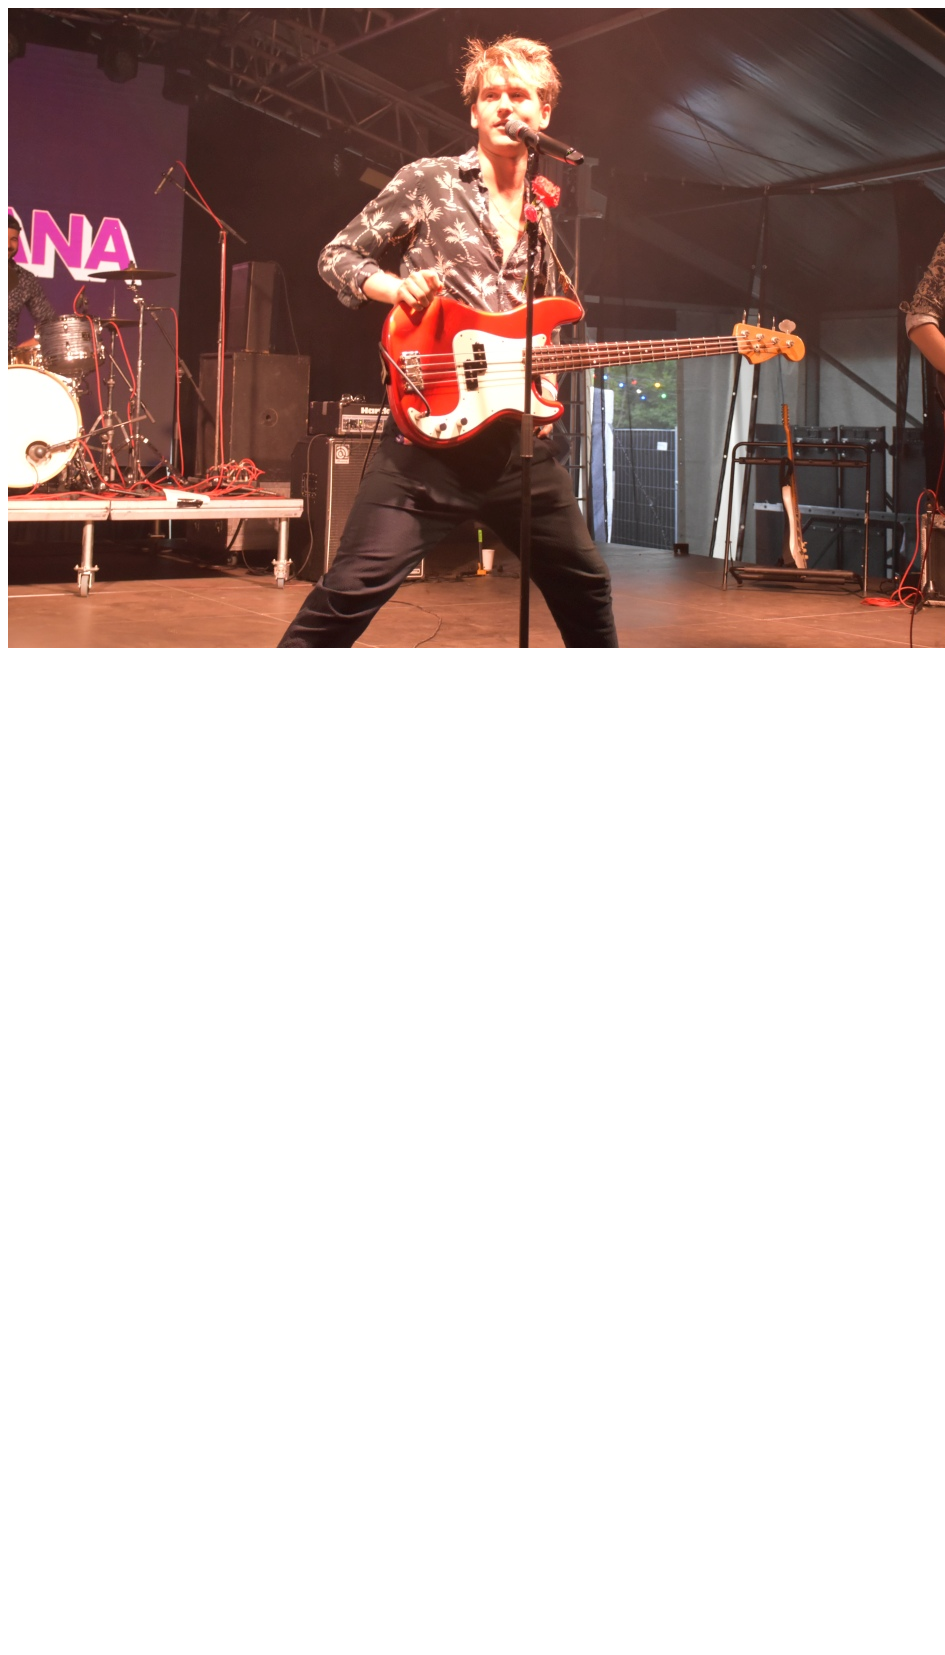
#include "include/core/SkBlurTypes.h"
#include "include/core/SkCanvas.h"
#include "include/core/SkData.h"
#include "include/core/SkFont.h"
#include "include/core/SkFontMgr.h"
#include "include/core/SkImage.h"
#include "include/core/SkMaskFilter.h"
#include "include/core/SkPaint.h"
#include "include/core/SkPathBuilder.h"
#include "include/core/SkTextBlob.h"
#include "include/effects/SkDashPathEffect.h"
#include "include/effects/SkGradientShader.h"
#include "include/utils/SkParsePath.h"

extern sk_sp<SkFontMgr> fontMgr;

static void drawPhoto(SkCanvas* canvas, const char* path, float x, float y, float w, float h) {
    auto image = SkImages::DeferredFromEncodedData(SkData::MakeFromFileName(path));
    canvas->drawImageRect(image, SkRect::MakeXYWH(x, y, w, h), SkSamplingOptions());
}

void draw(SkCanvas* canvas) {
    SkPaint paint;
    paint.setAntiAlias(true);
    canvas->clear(0xFFFFFFFF);
    drawPhoto(canvas, "assets/img1.png", 8, 8, 937, 640);
}
